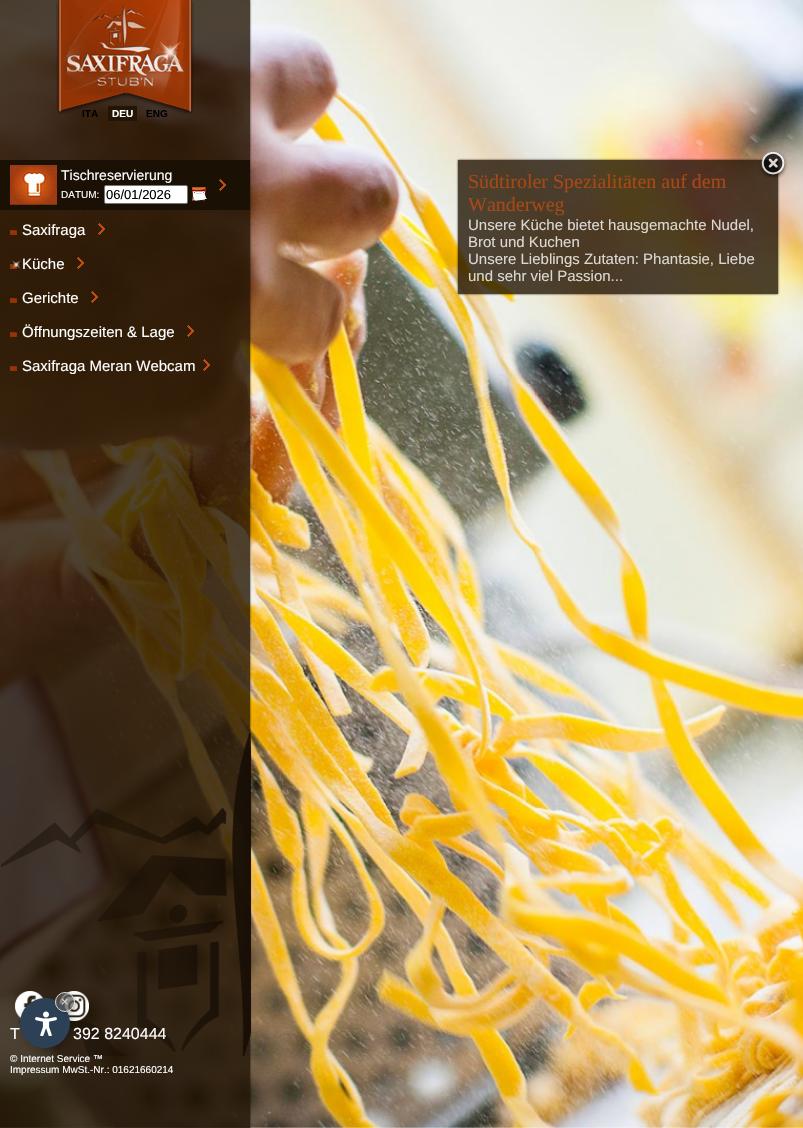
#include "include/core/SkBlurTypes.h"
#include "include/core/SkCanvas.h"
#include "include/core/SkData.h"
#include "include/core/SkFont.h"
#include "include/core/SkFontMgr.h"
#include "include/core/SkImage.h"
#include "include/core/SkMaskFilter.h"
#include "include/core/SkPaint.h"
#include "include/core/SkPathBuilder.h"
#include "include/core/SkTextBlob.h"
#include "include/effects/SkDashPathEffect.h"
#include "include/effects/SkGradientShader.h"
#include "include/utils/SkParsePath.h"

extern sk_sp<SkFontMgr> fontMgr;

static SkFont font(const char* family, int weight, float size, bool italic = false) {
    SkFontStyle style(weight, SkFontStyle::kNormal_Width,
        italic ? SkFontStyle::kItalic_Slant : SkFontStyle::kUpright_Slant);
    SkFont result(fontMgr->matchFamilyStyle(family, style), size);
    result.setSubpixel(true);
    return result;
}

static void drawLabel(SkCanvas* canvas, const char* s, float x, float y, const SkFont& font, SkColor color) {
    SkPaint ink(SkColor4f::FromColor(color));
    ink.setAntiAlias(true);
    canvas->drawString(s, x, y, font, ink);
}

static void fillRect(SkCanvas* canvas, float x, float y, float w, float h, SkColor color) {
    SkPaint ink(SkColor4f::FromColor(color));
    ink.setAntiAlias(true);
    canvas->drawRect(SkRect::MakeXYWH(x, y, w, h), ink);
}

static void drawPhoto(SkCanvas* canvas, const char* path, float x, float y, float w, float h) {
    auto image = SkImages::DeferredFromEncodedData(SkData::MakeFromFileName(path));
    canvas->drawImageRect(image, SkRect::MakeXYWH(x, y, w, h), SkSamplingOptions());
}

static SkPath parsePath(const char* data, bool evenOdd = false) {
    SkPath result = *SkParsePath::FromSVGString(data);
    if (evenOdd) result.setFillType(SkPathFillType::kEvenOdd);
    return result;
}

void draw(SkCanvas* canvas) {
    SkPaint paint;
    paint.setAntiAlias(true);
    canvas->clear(0xFFFFFFFF);
    drawPhoto(canvas, "assets/img1.png", 0, 0, 803, 1128);
    canvas->save();
    canvas->clipRect(SkRect::MakeXYWH(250, 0, 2, 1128));
    paint.setColor(0xCC000000);
    paint.setMaskFilter(SkMaskFilter::MakeBlur(kNormal_SkBlurStyle, 1));
    canvas->drawRect(SkRect::MakeXYWH(0, 0, 250, 1128), paint);
    paint.setMaskFilter(nullptr);
    canvas->restore();
    fillRect(canvas, 0, 0, 250, 1128, 0xCC231505);
    drawPhoto(canvas, "assets/img2.png", 56, 0, 138, 114);
    SkFont font1 = font("Liberation Sans", 700, 10);
    drawLabel(canvas, "ITA", 82, 117, font1, 0xFF000000);
    fillRect(canvas, 108, 106, 29, 15, 0xFF231505);
    drawLabel(canvas, "DEU", 112, 117, font1, 0xFFFFFFFF);
    drawLabel(canvas, "ENG", 146, 117, font1, 0xFF000000);
    fillRect(canvas, 0, 160, 250, 50, 0xFF1A1003);
    drawPhoto(canvas, "assets/img3.png", 10, 165, 47, 40);
    SkFont font2 = font("Liberation Sans", 400, 14);
    drawLabel(canvas, "Tischreservierung", 61, 180, font2, 0xFFFFFFFF);
    SkFont font3 = font("Liberation Sans", 400, 10);
    drawLabel(canvas, "DATUM:", 61, 198, font3, 0xFFFFFFFF);
    paint.setColor(0xFFFFFFFF);
    canvas->drawRoundRect(SkRect::MakeXYWH(104.5f, 185.5f, 83, 18), 1.5f, 1.5f, paint);
    paint.setStroke(true);
    paint.setStrokeWidth(1);
    paint.setColor(0xFF767676);
    canvas->drawRoundRect(SkRect::MakeXYWH(104.5f, 185.5f, 83, 18), 1.5f, 1.5f, paint);
    SkFont font4 = font("Liberation Sans", 400, 13);
    drawLabel(canvas, "06/01/2026", 106, 199, font4, 0xFF000000);
    drawPhoto(canvas, "assets/img4.png", 192, 187, 15, 14);
    drawPhoto(canvas, "assets/img5.png", 219, 179, 7, 12);
    canvas->save();
    canvas->clipPath(parsePath("M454 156H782V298H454ZM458 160H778V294H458Z", true), true);
    paint.setStroke(false);
    paint.setColor(0xCC000000);
    paint.setMaskFilter(SkMaskFilter::MakeBlur(kNormal_SkBlurStyle, 1));
    canvas->drawRect(SkRect::MakeXYWH(458, 160, 320, 134), paint);
    paint.setMaskFilter(nullptr);
    canvas->restore();
    fillRect(canvas, 458, 160, 320, 134, 0xCC231505);
    drawPhoto(canvas, "assets/img6.png", 759, 151, 29, 27);
    SkFont font5 = font("Liberation Serif", 400, 20);
    drawLabel(canvas, "Südtiroler Spezialitäten auf dem", 468, 188, font5, 0xFFA74915);
    drawLabel(canvas, "Wanderweg", 468, 211, font5, 0xFFA74915);
    SkFont font6 = font("Liberation Sans", 400, 15);
    drawLabel(canvas, "Unsere Küche bietet hausgemachte Nudel,", 468, 230, font6, 0xFFDBD8D3);
    drawLabel(canvas, "Brot und Kuchen", 468, 247, font6, 0xFFDBD8D3);
    drawLabel(canvas, "Unsere Lieblings Zutaten: Phantasie, Liebe", 468, 264, font6, 0xFFDBD8D3);
    drawLabel(canvas, "und sehr viel Passion...", 468, 281, font6, 0xFFDBD8D3);
    drawPhoto(canvas, "assets/img7.png", 10, 230, 7, 5);
    drawLabel(canvas, "Saxifraga", 22, 235, font6, 0xFFFFFFFF);
    drawPhoto(canvas, "assets/img8.png", 98, 223, 7, 12);
    drawPhoto(canvas, "assets/img9.png", 10, 260, 11, 9);
    drawLabel(canvas, "Küche", 22, 269, font6, 0xFFFFFFFF);
    drawPhoto(canvas, "assets/img10.png", 77, 257, 7, 12);
    drawPhoto(canvas, "assets/img7.png", 10, 298, 7, 5);
    drawLabel(canvas, "Gerichte", 22, 303, font6, 0xFFFFFFFF);
    drawPhoto(canvas, "assets/img11.png", 91, 291, 7, 12);
    drawPhoto(canvas, "assets/img7.png", 10, 332, 7, 5);
    drawLabel(canvas, "Öffnungszeiten & Lage", 22, 337, font6, 0xFFFFFFFF);
    drawPhoto(canvas, "assets/img12.png", 187, 325, 7, 12);
    drawPhoto(canvas, "assets/img7.png", 10, 366, 7, 5);
    drawLabel(canvas, "Saxifraga Meran Webcam", 22, 371, font6, 0xFFFFFFFF);
    drawPhoto(canvas, "assets/img13.png", 203, 359, 7, 12);
    drawPhoto(canvas, "assets/img14.png", 1, 733, 250, 323);
    drawPhoto(canvas, "assets/img16.png", 15, 991, 29, 28);
    drawPhoto(canvas, "assets/img17.png", 59, 991, 30, 30);
    paint.setColor(0x40000000);
    paint.setMaskFilter(SkMaskFilter::MakeBlur(kNormal_SkBlurStyle, 4));
    canvas->drawRoundRect(SkRect::MakeXYWH(22, 1000, 50, 50), 25, 25, paint);
    paint.setMaskFilter(nullptr);
    paint.setColor(0xFF2D4156);
    canvas->drawCircle(45, 1023, 25, paint);
    drawPhoto(canvas, "assets/img15.png", 35, 1011, 22, 25);
    canvas->save();
    canvas->clipPath(parsePath("M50 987H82V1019H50ZM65 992C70.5 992 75 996.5 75 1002C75 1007.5 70.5 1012 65 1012C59.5 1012 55 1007.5 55 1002C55 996.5 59.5 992 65 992Z", true), true);
    paint.setColor(0x4D000000);
    paint.setMaskFilter(SkMaskFilter::MakeBlur(kNormal_SkBlurStyle, 1.5f));
    canvas->drawRoundRect(SkRect::MakeXYWH(56, 993, 20, 20), 10, 10, paint);
    paint.setMaskFilter(nullptr);
    canvas->restore();
    paint.setColor(0xB35A5A5A);
    canvas->drawCircle(65, 1002, 9.5f, paint);
    paint.setStroke(true);
    paint.setColor(0xFFDADADA);
    canvas->drawCircle(65, 1002, 9.5f, paint);
    drawLabel(canvas, "×", 61, 1006, font4, 0xFFDADADA);
    SkFont font7 = font("Liberation Sans", 400, 16);
    drawLabel(canvas, "T", 10, 1039, font7, 0xFFFFFFFF);
    drawLabel(canvas, "392 8240444", 73, 1039, font7, 0xFFFFFFFF);
    drawLabel(canvas, "© Internet Service ™", 10, 1062, font3, 0xFFFFFFFF);
    drawLabel(canvas, "Impressum MwSt.-Nr.: 01621660214", 10, 1073, font3, 0xFFFFFFFF);
}
